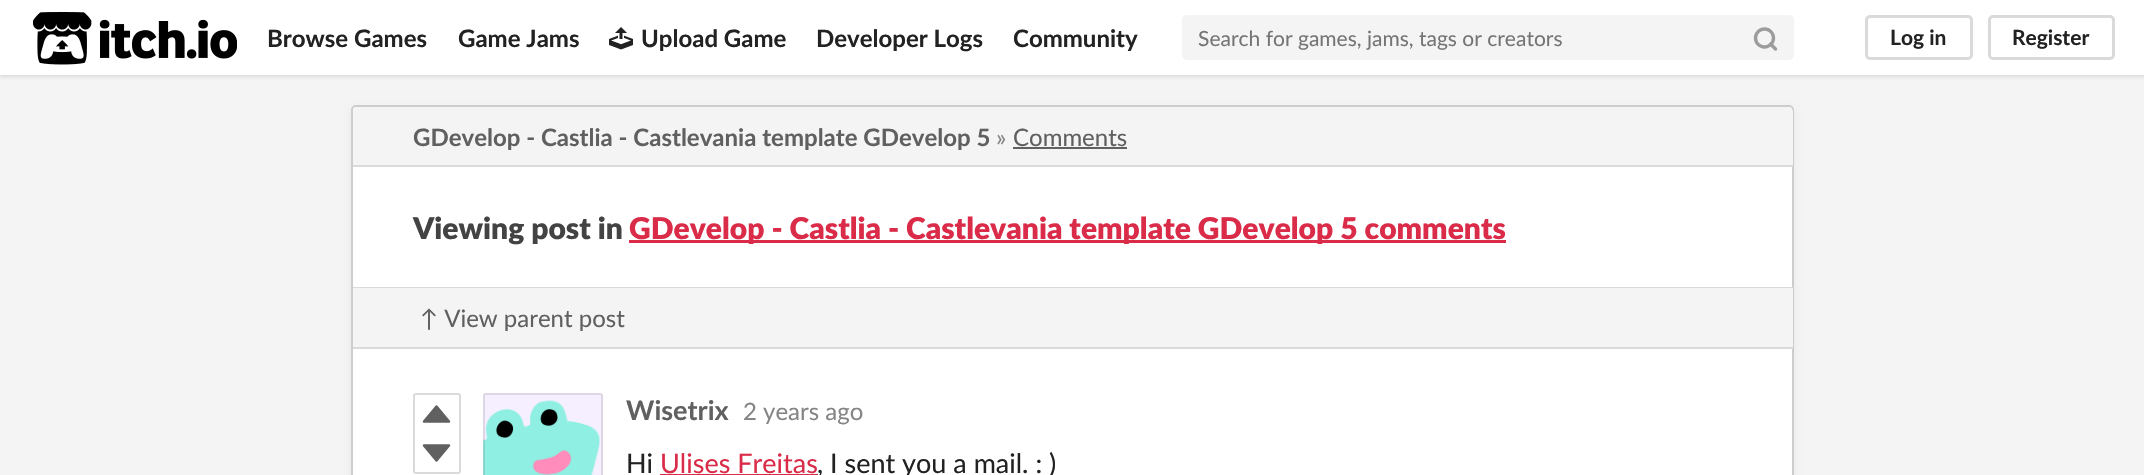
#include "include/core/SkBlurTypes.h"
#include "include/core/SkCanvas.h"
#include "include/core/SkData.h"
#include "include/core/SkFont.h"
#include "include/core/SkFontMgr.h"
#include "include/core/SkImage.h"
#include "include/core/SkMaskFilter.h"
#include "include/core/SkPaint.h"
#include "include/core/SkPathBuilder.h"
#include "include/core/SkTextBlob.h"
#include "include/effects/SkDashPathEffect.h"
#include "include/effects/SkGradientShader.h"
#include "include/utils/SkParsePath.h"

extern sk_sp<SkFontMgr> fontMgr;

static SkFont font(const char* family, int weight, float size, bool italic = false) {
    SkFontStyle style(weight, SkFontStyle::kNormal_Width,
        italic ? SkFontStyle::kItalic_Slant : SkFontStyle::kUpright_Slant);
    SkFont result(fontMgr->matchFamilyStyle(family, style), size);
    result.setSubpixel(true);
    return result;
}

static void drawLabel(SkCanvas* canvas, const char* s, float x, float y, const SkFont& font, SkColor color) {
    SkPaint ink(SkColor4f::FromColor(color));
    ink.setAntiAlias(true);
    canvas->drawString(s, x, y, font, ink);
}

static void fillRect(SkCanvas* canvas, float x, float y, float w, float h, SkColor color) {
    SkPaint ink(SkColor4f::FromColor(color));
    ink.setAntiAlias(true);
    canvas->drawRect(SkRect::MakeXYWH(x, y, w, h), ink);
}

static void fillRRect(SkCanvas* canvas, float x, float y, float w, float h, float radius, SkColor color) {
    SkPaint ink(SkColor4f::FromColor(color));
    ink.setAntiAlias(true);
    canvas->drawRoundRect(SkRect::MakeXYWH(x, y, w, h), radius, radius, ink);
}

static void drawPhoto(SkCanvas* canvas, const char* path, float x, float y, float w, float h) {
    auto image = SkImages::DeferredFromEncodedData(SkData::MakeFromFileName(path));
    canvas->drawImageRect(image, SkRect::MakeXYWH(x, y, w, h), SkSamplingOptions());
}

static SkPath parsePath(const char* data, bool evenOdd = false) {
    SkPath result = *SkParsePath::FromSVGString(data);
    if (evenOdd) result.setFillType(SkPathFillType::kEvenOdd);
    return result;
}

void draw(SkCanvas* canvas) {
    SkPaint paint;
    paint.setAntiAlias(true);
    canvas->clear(0xFFF4F4F4);
    paint.setColor(0x1A000000);
    paint.setMaskFilter(SkMaskFilter::MakeBlur(kNormal_SkBlurStyle, 1.5f));
    canvas->drawRect(SkRect::MakeXYWH(0, 2, 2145, 75), paint);
    paint.setMaskFilter(nullptr);
    fillRect(canvas, 0, 0, 2144, 75, 0xFFFFFFFF);
    drawPhoto(canvas, "assets/img1.png", 33, 12, 204, 53);
    SkFont font1 = font("Lato", 700, 24);
    drawLabel(canvas, "Browse Games", 267, 47, font1, 0xFF222222);
    drawLabel(canvas, "Game Jams", 458, 47, font1, 0xFF222222);
    drawPhoto(canvas, "assets/img2.png", 609, 27, 24, 23);
    drawLabel(canvas, "Upload Game", 641, 47, font1, 0xFF222222);
    drawLabel(canvas, "Developer Logs", 816, 47, font1, 0xFF222222);
    drawLabel(canvas, "Community", 1013, 47, font1, 0xFF222222);
    fillRRect(canvas, 1182, 15, 612, 45, 5, 0xFFF4F4F4);
    SkFont font2 = font("Lato", 400, 21);
    drawLabel(canvas, "Search for games, jams, tags or creators", 1198, 46, font2, 0xFF757575);
    paint.setStroke(true);
    paint.setStrokeWidth(3.4f);
    paint.setColor(0xFF9C9C9C);
    canvas->drawCircle(1764.5f, 38, 9, paint);
    paint.setStrokeCap(SkPaint::kRound_Cap);
    paint.setStrokeJoin(SkPaint::kRound_Join);
    canvas->drawPath(parsePath("M1775.5 49L1770.5 44"), paint);
    paint.setStrokeWidth(3);
    paint.setStrokeCap(SkPaint::kButt_Cap);
    paint.setStrokeJoin(SkPaint::kMiter_Join);
    paint.setColor(0xFFDADADA);
    canvas->drawRoundRect(SkRect::MakeXYWH(1866.5f, 16.5f, 105, 42), 3.5f, 3.5f, paint);
    SkFont font3 = font("Lato", 700, 21);
    drawLabel(canvas, "Log in", 1890, 45, font3, 0xFF222222);
    canvas->drawRoundRect(SkRect::MakeXYWH(1989.5f, 16.5f, 124, 42), 3.5f, 3.5f, paint);
    drawLabel(canvas, "Register", 2012, 45, font3, 0xFF222222);
    paint.setStroke(false);
    paint.setColor(0x0D000000);
    paint.setMaskFilter(SkMaskFilter::MakeBlur(kNormal_SkBlurStyle, 3));
    canvas->drawRoundRect(SkRect::MakeXYWH(351, 108, 1443, 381), 5, 5, paint);
    paint.setMaskFilter(nullptr);
    paint.setColor(0xFFFFFFFF);
    canvas->drawRoundRect(SkRect::MakeXYWH(352, 106, 1441, 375), 4, 4, paint);
    paint.setStroke(true);
    paint.setStrokeWidth(2);
    paint.setColor(0xFFCDCDCD);
    canvas->drawRoundRect(SkRect::MakeXYWH(352, 106, 1441, 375), 4, 4, paint);
    paint.setStroke(false);
    paint.setColor(0xFFF4F4F4);
    canvas->drawPath(parsePath("M358 107H1788C1791 107 1793 109 1793 112V167H353V112C353 109 355 107 358 107Z"), paint);
    fillRect(canvas, 353, 165, 1440, 2, 0xFFDADADA);
    drawLabel(canvas, "GDevelop - Castlia - Castlevania template GDevelop 5", 413, 146, font1, 0xFF606060);
    SkFont font4 = font("Lato", 400, 24);
    drawLabel(canvas, "»", 996, 146, font4, 0xFF858585);
    drawLabel(canvas, "Comments", 1013, 146, font4, 0xFF606060);
    fillRect(canvas, 1013, 147, 114, 2, 0xFF606060);
    fillRect(canvas, 353, 287, 1440, 1, 0xFFDADADA);
    SkFont font5 = font("Lato", 900, 30);
    drawLabel(canvas, "Viewing post in", 413, 239, font5, 0xFF434343);
    fillRect(canvas, 629, 240, 877, 3, 0xFFDA2C49);
    drawLabel(canvas, "GDevelop - Castlia - Castlevania template GDevelop 5 comments", 629, 239, font5, 0xFFDA2C49);
    fillRect(canvas, 353, 288, 1440, 59, 0xFFF4F4F4);
    fillRect(canvas, 353, 347, 1440, 2, 0xFFDADADA);
    drawLabel(canvas, "↑ View parent post", 420, 327, font4, 0xFF606060);
    paint.setStroke(true);
    paint.setColor(0xFFDADADA);
    canvas->drawRoundRect(SkRect::MakeXYWH(414, 394, 46, 79), 2, 2, paint);
    paint.setStroke(false);
    paint.setColor(0xFF606060);
    canvas->drawPath(parsePath("M424 421.5L436.5 406.5L449 421.5Z"), paint);
    paint.setStroke(true);
    paint.setStrokeWidth(2.5f);
    paint.setStrokeJoin(SkPaint::kRound_Join);
    canvas->drawPath(parsePath("M424 421.5L436.5 406.5L449 421.5Z"), paint);
    paint.setStroke(false);
    canvas->drawPath(parsePath("M424 445.5L436.5 460.5L449 445.5Z"), paint);
    paint.setStroke(true);
    canvas->drawPath(parsePath("M424 445.5L436.5 460.5L449 445.5Z"), paint);
    drawPhoto(canvas, "assets/img3.png", 483, 393, 120, 82);
    paint.setStrokeWidth(2);
    paint.setStrokeJoin(SkPaint::kMiter_Join);
    paint.setColor(0x1A000000);
    canvas->drawRoundRect(SkRect::MakeXYWH(484, 394, 118, 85), 2, 2, paint);
    SkFont font6 = font("Lato", 700, 27);
    drawLabel(canvas, "Wisetrix", 626, 420, font6, 0xFF606060);
    drawLabel(canvas, "2 years ago", 743, 420, font4, 0xFF858585);
    SkFont font7 = font("Lato", 400, 27);
    drawLabel(canvas, "Hi", 626, 473, font7, 0xFF222222);
    drawLabel(canvas, "Ulises Freitas", 660, 473, font7, 0xFFDA2C49);
    fillRect(canvas, 660, 474, 158, 1, 0xFFDA2C49);
    drawLabel(canvas, ", I sent you a mail. : )", 817, 473, font7, 0xFF222222);
}
